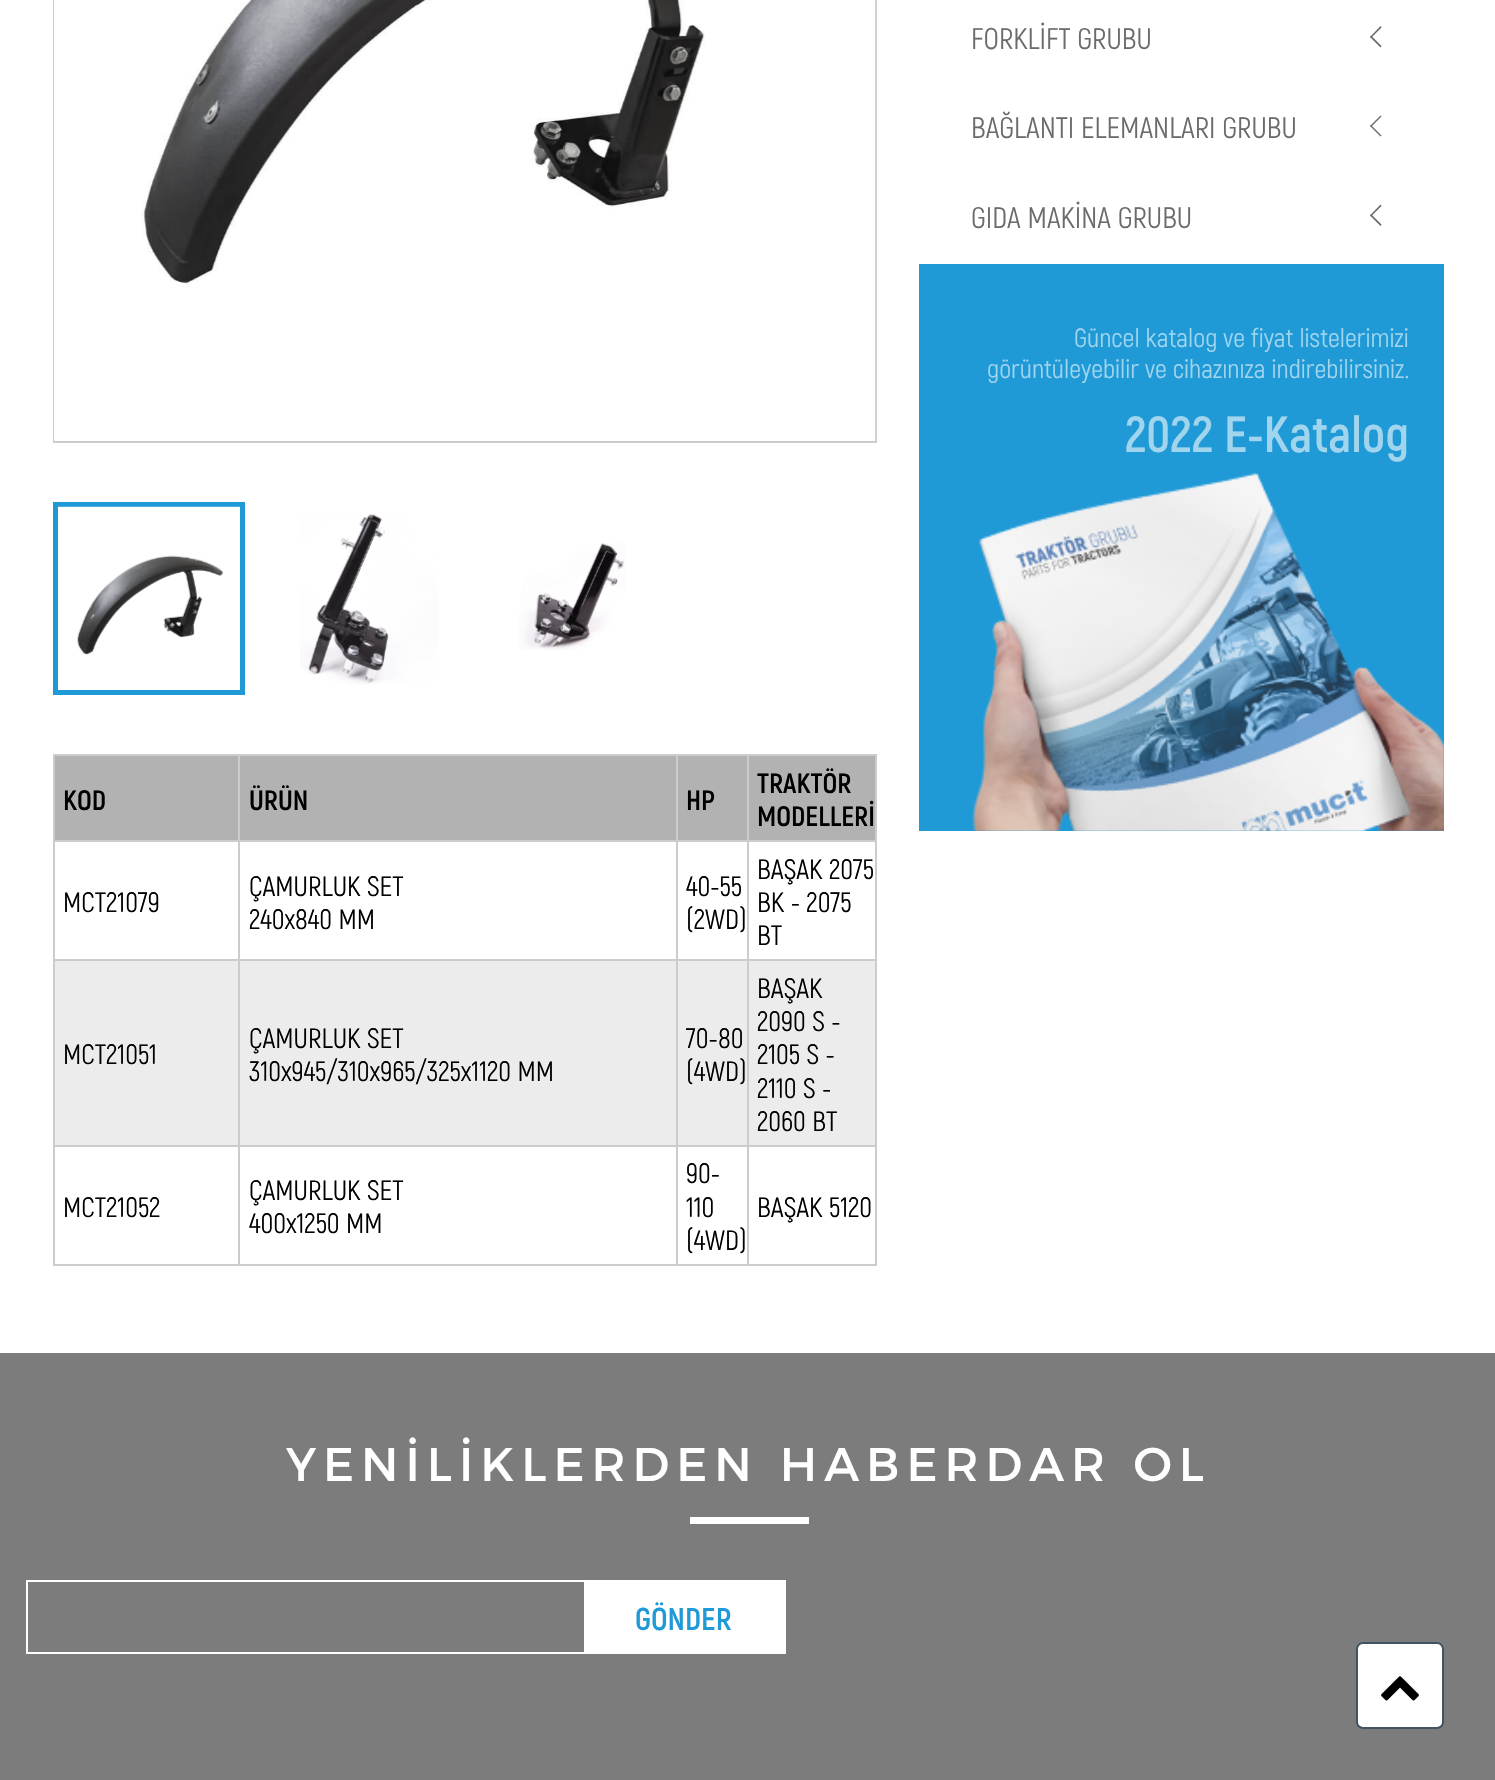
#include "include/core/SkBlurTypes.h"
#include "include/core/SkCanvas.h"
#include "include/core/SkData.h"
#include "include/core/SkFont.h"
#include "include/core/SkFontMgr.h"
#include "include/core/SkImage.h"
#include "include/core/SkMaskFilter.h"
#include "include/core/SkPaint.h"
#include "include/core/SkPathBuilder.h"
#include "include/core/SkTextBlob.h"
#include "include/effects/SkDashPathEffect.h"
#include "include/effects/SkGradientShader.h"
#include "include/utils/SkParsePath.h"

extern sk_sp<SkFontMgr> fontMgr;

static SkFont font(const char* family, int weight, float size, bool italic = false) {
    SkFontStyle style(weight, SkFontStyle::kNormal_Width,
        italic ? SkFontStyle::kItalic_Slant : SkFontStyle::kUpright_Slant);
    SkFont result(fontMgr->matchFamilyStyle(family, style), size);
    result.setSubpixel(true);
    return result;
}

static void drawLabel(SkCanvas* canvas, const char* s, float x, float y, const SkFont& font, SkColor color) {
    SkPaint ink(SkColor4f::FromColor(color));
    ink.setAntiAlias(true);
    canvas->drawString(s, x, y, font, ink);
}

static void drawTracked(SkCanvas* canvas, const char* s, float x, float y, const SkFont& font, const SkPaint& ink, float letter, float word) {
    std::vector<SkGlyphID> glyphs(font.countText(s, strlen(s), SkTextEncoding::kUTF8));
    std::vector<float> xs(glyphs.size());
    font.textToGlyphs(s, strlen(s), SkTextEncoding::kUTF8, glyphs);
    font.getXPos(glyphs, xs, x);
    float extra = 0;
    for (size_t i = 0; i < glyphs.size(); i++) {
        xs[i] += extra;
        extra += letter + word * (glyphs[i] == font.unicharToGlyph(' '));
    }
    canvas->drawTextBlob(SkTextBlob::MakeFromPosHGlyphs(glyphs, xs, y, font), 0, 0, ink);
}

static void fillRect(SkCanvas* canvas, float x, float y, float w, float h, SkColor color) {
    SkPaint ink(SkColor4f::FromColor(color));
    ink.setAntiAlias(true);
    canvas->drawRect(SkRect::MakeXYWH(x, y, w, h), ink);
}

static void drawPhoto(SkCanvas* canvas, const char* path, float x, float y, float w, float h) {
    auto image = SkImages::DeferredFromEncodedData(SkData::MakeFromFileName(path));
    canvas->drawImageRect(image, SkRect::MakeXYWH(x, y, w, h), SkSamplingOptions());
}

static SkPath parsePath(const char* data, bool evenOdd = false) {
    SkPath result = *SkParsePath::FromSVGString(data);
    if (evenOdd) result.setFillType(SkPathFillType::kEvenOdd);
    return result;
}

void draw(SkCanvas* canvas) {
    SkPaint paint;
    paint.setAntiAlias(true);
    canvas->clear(0xFFFFFFFF);
    SkFont font1 = font("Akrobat", 400, 29.75f);
    drawLabel(canvas, "FORKLİFT GRUBU", 971, 49, font1, 0xFF6B6B6B);
    paint.setColor(0xFF6B6B6B);
    canvas->drawPath(parsePath("M1370 37L1380.5 26L1381.5 27.5L1371 38Z"), paint);
    canvas->drawPath(parsePath("M1370 37L1371 35.5L1381.5 46L1380.5 47.5Z"), paint);
    drawLabel(canvas, "BAĞLANTI ELEMANLARI GRUBU", 971, 138, font1, 0xFF6B6B6B);
    canvas->drawPath(parsePath("M1370 126L1380.5 115.5L1381.5 116.5L1371 127Z"), paint);
    canvas->drawPath(parsePath("M1370 126L1371 125L1381.5 135.5L1380.5 136.5Z"), paint);
    drawLabel(canvas, "GIDA MAKİNA GRUBU", 971, 228, font1, 0xFF6B6B6B);
    canvas->drawPath(parsePath("M1370 215.5L1380.5 204.5L1381.5 206L1371 216.5Z"), paint);
    canvas->drawPath(parsePath("M1370 215.5L1371 214L1381.5 224.5L1380.5 226Z"), paint);
    fillRect(canvas, 919, 264, 525, 567, 0xFF1F9AD7);
    drawPhoto(canvas, "assets/img1.png", 972, 472, 472, 359);
    SkFont font2 = font("Akrobat", 400, 26.25f);
    drawLabel(canvas, "Güncel katalog ve fiyat listelerimizi", 1074, 347, font2, 0xFFA1D5EE);
    drawLabel(canvas, "görüntüleyebilir ve cihazınıza indirebilirsiniz.", 987, 378, font2, 0xFFA1D5EE);
    SkFont font3 = font("Akrobat", 700, 50.75f);
    drawLabel(canvas, "2022 E-Katalog", 1125, 452, font3, 0xFFA1D5EE);
    paint.setStroke(true);
    paint.setStrokeWidth(2);
    paint.setColor(0xFFCCCCCC);
    canvas->drawRect(SkRect::MakeXYWH(54, -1, 822, 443), paint);
    drawPhoto(canvas, "assets/img2.png", 54, 0, 822, 441);
    paint.setStrokeWidth(5);
    paint.setColor(0xFF1F9AD7);
    canvas->drawRect(SkRect::MakeXYWH(55.5f, 504.5f, 187, 188), paint);
    drawPhoto(canvas, "assets/img3.png", 58, 506, 182, 149);
    drawPhoto(canvas, "assets/img4.png", 300, 514, 139, 171);
    drawPhoto(canvas, "assets/img5.png", 519, 543, 107, 107);
    fillRect(canvas, 53, 754, 824, 2, 0xFFCCCCCC);
    fillRect(canvas, 875, 754, 2, 511, 0xFFCCCCCC);
    fillRect(canvas, 53, 1264, 824, 2, 0xFFCCCCCC);
    fillRect(canvas, 53, 754, 2, 511, 0xFFCCCCCC);
    fillRect(canvas, 55, 756, 183, 84, 0xFFB3B2B2);
    SkFont font4 = font("Akrobat", 700, 28);
    drawLabel(canvas, "KOD", 63, 810, font4, 0xFF000000);
    fillRect(canvas, 240, 756, 436, 84, 0xFFB3B2B2);
    fillRect(canvas, 747, 840, 130, 2, 0xFFCCCCCC);
    fillRect(canvas, 747, 959, 130, 2, 0xFFCCCCCC);
    fillRect(canvas, 747, 1145, 130, 2, 0xFFCCCCCC);
    fillRect(canvas, 747, 1145, 2, 120, 0xFFCCCCCC);
    fillRect(canvas, 676, 1145, 73, 2, 0xFFCCCCCC);
    fillRect(canvas, 747, 959, 2, 187, 0xFFCCCCCC);
    fillRect(canvas, 676, 959, 73, 2, 0xFFCCCCCC);
    fillRect(canvas, 747, 840, 2, 121, 0xFFCCCCCC);
    fillRect(canvas, 676, 840, 73, 2, 0xFFCCCCCC);
    fillRect(canvas, 676, 1145, 2, 120, 0xFFCCCCCC);
    fillRect(canvas, 238, 1145, 439, 2, 0xFFCCCCCC);
    fillRect(canvas, 676, 959, 2, 187, 0xFFCCCCCC);
    fillRect(canvas, 238, 959, 439, 2, 0xFFCCCCCC);
    fillRect(canvas, 676, 840, 2, 121, 0xFFCCCCCC);
    fillRect(canvas, 238, 840, 439, 2, 0xFFCCCCCC);
    fillRect(canvas, 238, 1145, 2, 120, 0xFFCCCCCC);
    fillRect(canvas, 53, 1145, 187, 2, 0xFFCCCCCC);
    fillRect(canvas, 238, 959, 2, 187, 0xFFCCCCCC);
    fillRect(canvas, 53, 959, 187, 2, 0xFFCCCCCC);
    fillRect(canvas, 238, 840, 2, 121, 0xFFCCCCCC);
    fillRect(canvas, 53, 840, 187, 2, 0xFFCCCCCC);
    fillRect(canvas, 238, 754, 2, 88, 0xFFCCCCCC);
    drawLabel(canvas, "ÜRÜN", 249, 810, font4, 0xFF000000);
    fillRect(canvas, 678, 756, 69, 84, 0xFFB3B2B2);
    fillRect(canvas, 676, 754, 2, 88, 0xFFCCCCCC);
    drawLabel(canvas, "HP", 686, 810, font4, 0xFF000000);
    fillRect(canvas, 749, 756, 126, 84, 0xFFB3B2B2);
    fillRect(canvas, 747, 754, 2, 88, 0xFFCCCCCC);
    drawLabel(canvas, "TRAKTÖR", 757, 793, font4, 0xFF000000);
    drawLabel(canvas, "MODELLERİ", 757, 826, font4, 0xFF000000);
    SkFont font5 = font("Akrobat", 400, 28);
    drawLabel(canvas, "MCT21079", 63, 912, font5, 0xFF000000);
    drawLabel(canvas, "ÇAMURLUK SET", 249, 896, font5, 0xFF000000);
    drawLabel(canvas, "240x840 MM", 249, 929, font5, 0xFF000000);
    drawLabel(canvas, "40-55", 686, 896, font5, 0xFF000000);
    drawLabel(canvas, "(2WD)", 686, 929, font5, 0xFF000000);
    drawLabel(canvas, "BAŞAK 2075", 757, 879, font5, 0xFF000000);
    drawLabel(canvas, "BK - 2075", 757, 912, font5, 0xFF000000);
    drawLabel(canvas, "BT", 757, 945, font5, 0xFF000000);
    fillRect(canvas, 55, 961, 183, 184, 0xFFECECEC);
    drawLabel(canvas, "MCT21051", 63, 1064, font5, 0xFF000000);
    fillRect(canvas, 240, 961, 436, 184, 0xFFECECEC);
    drawLabel(canvas, "ÇAMURLUK SET", 249, 1048, font5, 0xFF000000);
    drawLabel(canvas, "310x945/310x965/325x1120 MM", 249, 1081, font5, 0xFF000000);
    fillRect(canvas, 678, 961, 69, 184, 0xFFECECEC);
    drawLabel(canvas, "70-80", 686, 1048, font5, 0xFF000000);
    drawLabel(canvas, "(4WD)", 686, 1081, font5, 0xFF000000);
    fillRect(canvas, 749, 961, 126, 184, 0xFFECECEC);
    drawLabel(canvas, "BAŞAK", 757, 998, font5, 0xFF000000);
    drawLabel(canvas, "2090 S -", 757, 1031, font5, 0xFF000000);
    drawLabel(canvas, "2105 S -", 757, 1064, font5, 0xFF000000);
    drawLabel(canvas, "2110 S -", 757, 1098, font5, 0xFF000000);
    drawLabel(canvas, "2060 BT", 757, 1131, font5, 0xFF000000);
    drawLabel(canvas, "MCT21052", 63, 1217, font5, 0xFF000000);
    drawLabel(canvas, "ÇAMURLUK SET", 249, 1200, font5, 0xFF000000);
    drawLabel(canvas, "400x1250 MM", 249, 1233, font5, 0xFF000000);
    drawLabel(canvas, "90-", 686, 1183, font5, 0xFF000000);
    drawLabel(canvas, "110", 686, 1217, font5, 0xFF000000);
    drawLabel(canvas, "(4WD)", 686, 1250, font5, 0xFF000000);
    drawLabel(canvas, "BAŞAK 5120", 757, 1217, font5, 0xFF000000);
    fillRect(canvas, 0, 1353, 1495, 427, 0xFF7C7C7C);
    SkFont font6 = font("Montserrat", 400, 47.25f);
    paint.setStroke(false);
    paint.setColor(0xFFFFFFFF);
    drawTracked(canvas, "YENİLİKLERDEN HABERDAR OL", 286, 1481, font6, paint, 7, 0);
    fillRect(canvas, 690, 1517, 119, 7, 0xFFFFFFFF);
    paint.setStroke(true);
    paint.setStrokeWidth(2);
    canvas->drawRect(SkRect::MakeXYWH(27, 1581, 558, 72), paint);
    fillRect(canvas, 586, 1580, 200, 74, 0xFFFFFFFF);
    SkFont font7 = font("Akrobat", 700, 31.5f);
    drawLabel(canvas, "GÖNDER", 635, 1630, font7, 0xFF1F9AD7);
    paint.setStroke(false);
    canvas->drawRoundRect(SkRect::MakeXYWH(1357, 1643, 86, 85), 6, 6, paint);
    paint.setStroke(true);
    paint.setColor(0xFF405462);
    canvas->drawRoundRect(SkRect::MakeXYWH(1357, 1643, 86, 85), 6, 6, paint);
    drawPhoto(canvas, "assets/img6.png", 1381, 1676, 38, 25);
}
